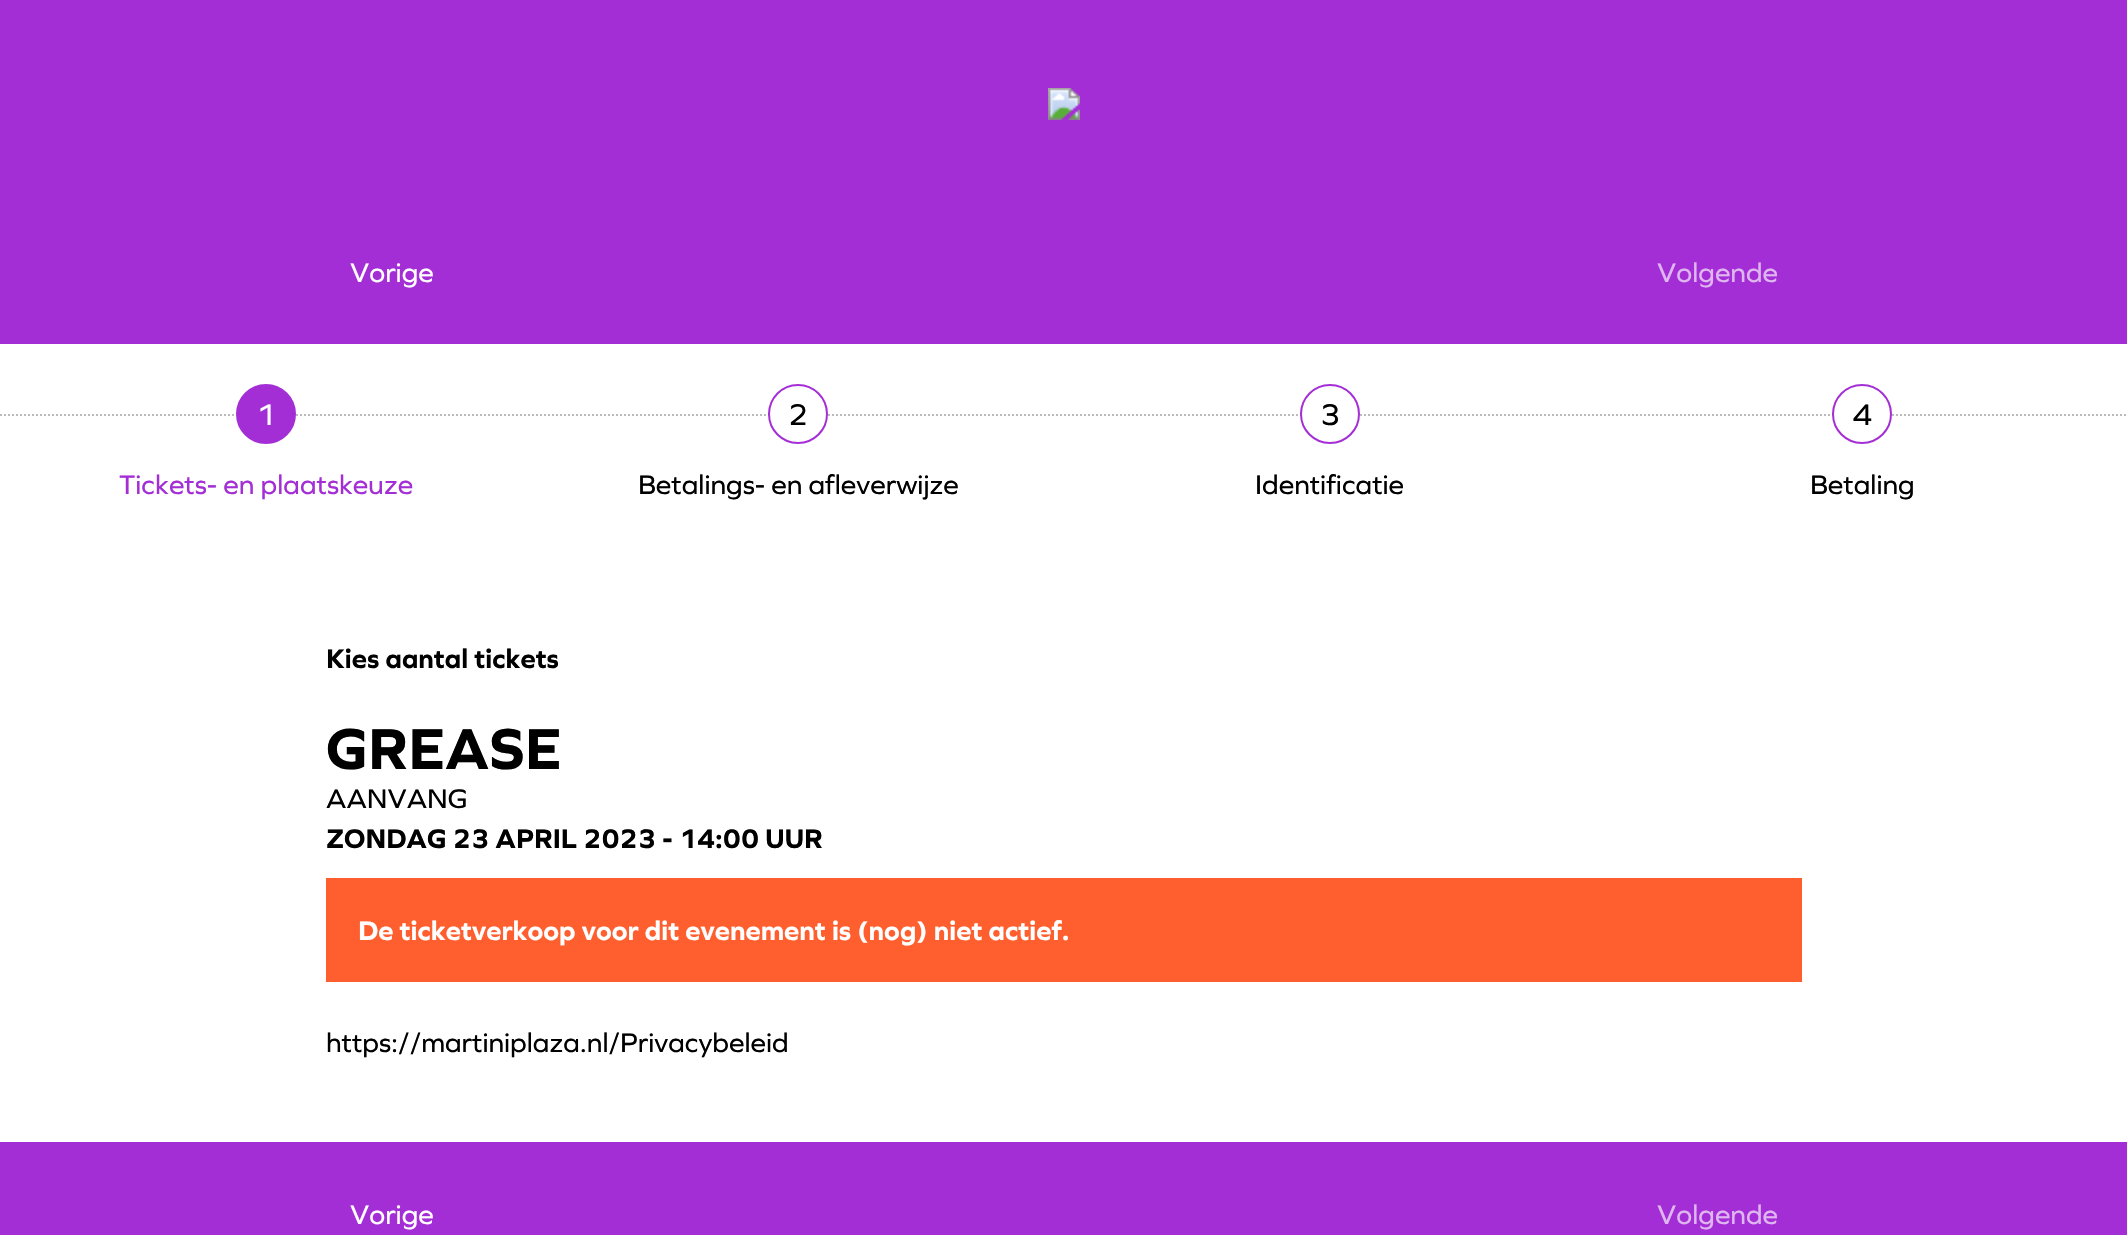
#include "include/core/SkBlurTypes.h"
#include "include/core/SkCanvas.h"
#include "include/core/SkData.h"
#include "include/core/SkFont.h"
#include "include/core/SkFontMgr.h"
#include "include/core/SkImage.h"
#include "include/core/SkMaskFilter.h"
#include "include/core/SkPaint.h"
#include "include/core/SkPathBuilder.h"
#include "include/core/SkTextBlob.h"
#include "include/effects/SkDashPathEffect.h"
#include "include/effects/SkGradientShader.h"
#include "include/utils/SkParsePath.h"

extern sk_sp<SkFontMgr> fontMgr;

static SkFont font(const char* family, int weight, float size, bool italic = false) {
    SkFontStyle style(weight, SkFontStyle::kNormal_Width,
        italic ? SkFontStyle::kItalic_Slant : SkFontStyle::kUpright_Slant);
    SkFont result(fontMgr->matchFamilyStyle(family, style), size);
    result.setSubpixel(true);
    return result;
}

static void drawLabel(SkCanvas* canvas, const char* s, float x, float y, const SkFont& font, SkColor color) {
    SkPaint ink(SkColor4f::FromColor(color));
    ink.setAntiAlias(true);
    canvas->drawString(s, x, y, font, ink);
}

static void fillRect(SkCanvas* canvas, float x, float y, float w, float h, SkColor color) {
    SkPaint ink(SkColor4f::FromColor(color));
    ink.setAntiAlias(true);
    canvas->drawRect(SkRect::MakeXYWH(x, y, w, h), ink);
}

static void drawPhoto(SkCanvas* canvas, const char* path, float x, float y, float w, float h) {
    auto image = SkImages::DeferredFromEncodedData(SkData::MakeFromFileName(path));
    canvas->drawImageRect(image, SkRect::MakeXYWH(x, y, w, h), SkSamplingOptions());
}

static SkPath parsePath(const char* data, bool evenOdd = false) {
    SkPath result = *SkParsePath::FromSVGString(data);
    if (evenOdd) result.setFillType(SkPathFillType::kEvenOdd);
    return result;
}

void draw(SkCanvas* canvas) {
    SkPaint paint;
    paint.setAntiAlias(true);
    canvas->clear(0xFFFFFFFF);
    fillRect(canvas, 0, 0, 2127, 344, 0xFFA42ED5);
    drawPhoto(canvas, "assets/img1.png", 1048, 88, 32, 32);
    SkFont font1 = font("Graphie", 400, 28);
    drawLabel(canvas, "Vorige", 350, 282, font1, 0xFFFFFFFF);
    drawLabel(canvas, "Volgende", 1657, 282, font1, 0xFFDFB6F0);
    paint.setStroke(true);
    paint.setStrokeWidth(2);
    paint.setColor(0xFFBBBBBB);
    paint.setPathEffect(SkDashPathEffect::Make({{2, 2}}, 0));
    canvas->drawPath(parsePath("M0 415H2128"), paint);
    paint.setPathEffect(nullptr);
    paint.setStroke(false);
    paint.setColor(0xFFA42ED5);
    canvas->drawCircle(266, 414, 29, paint);
    paint.setStroke(true);
    canvas->drawCircle(266, 414, 29, paint);
    SkFont font2 = font("Graphie", 400, 31);
    drawLabel(canvas, "1", 256, 425, font2, 0xFFFFFFFF);
    drawLabel(canvas, "Tickets- en plaatskeuze", 119, 494, font1, 0xFFA42ED5);
    paint.setStroke(false);
    paint.setColor(0xFFFFFFFF);
    canvas->drawCircle(798, 414, 29, paint);
    paint.setStroke(true);
    paint.setColor(0xFFA42ED5);
    canvas->drawCircle(798, 414, 29, paint);
    drawLabel(canvas, "2", 788, 425, font2, 0xFF000000);
    drawLabel(canvas, "Betalings- en afleverwijze", 638, 494, font1, 0xFF000000);
    paint.setStroke(false);
    paint.setColor(0xFFFFFFFF);
    canvas->drawCircle(1330, 414, 29, paint);
    paint.setStroke(true);
    paint.setColor(0xFFA42ED5);
    canvas->drawCircle(1330, 414, 29, paint);
    drawLabel(canvas, "3", 1320, 425, font2, 0xFF000000);
    drawLabel(canvas, "Identificatie", 1255, 494, font1, 0xFF000000);
    paint.setStroke(false);
    paint.setColor(0xFFFFFFFF);
    canvas->drawCircle(1862, 414, 29, paint);
    paint.setStroke(true);
    paint.setColor(0xFFA42ED5);
    canvas->drawCircle(1862, 414, 29, paint);
    drawLabel(canvas, "4", 1852, 425, font2, 0xFF000000);
    drawLabel(canvas, "Betaling", 1810, 494, font1, 0xFF000000);
    SkFont font3 = font("Graphie", 700, 28);
    drawLabel(canvas, "Kies aantal tickets", 326, 668, font3, 0xFF000000);
    SkFont font4 = font("Graphie", 700, 60);
    drawLabel(canvas, "GREASE", 326, 769, font4, 0xFF000000);
    drawLabel(canvas, "AANVANG", 326, 808, font1, 0xFF000000);
    drawLabel(canvas, "ZONDAG 23 APRIL 2023 - 14:00 UUR", 326, 848, font3, 0xFF000000);
    fillRect(canvas, 326, 878, 1476, 104, 0xFFFF5F2E);
    drawLabel(canvas, "De ticketverkoop voor dit evenement is (nog) niet actief.", 358, 940, font3, 0xFFFFFFFF);
    drawLabel(canvas, "https://martiniplaza.nl/Privacybeleid", 326, 1052, font1, 0xFF000000);
    fillRect(canvas, 0, 1142, 2127, 93, 0xFFA42ED5);
    drawLabel(canvas, "Vorige", 350, 1224, font1, 0xFFFFFFFF);
    drawLabel(canvas, "Volgende", 1657, 1224, font1, 0xFFDFB6F0);
}
